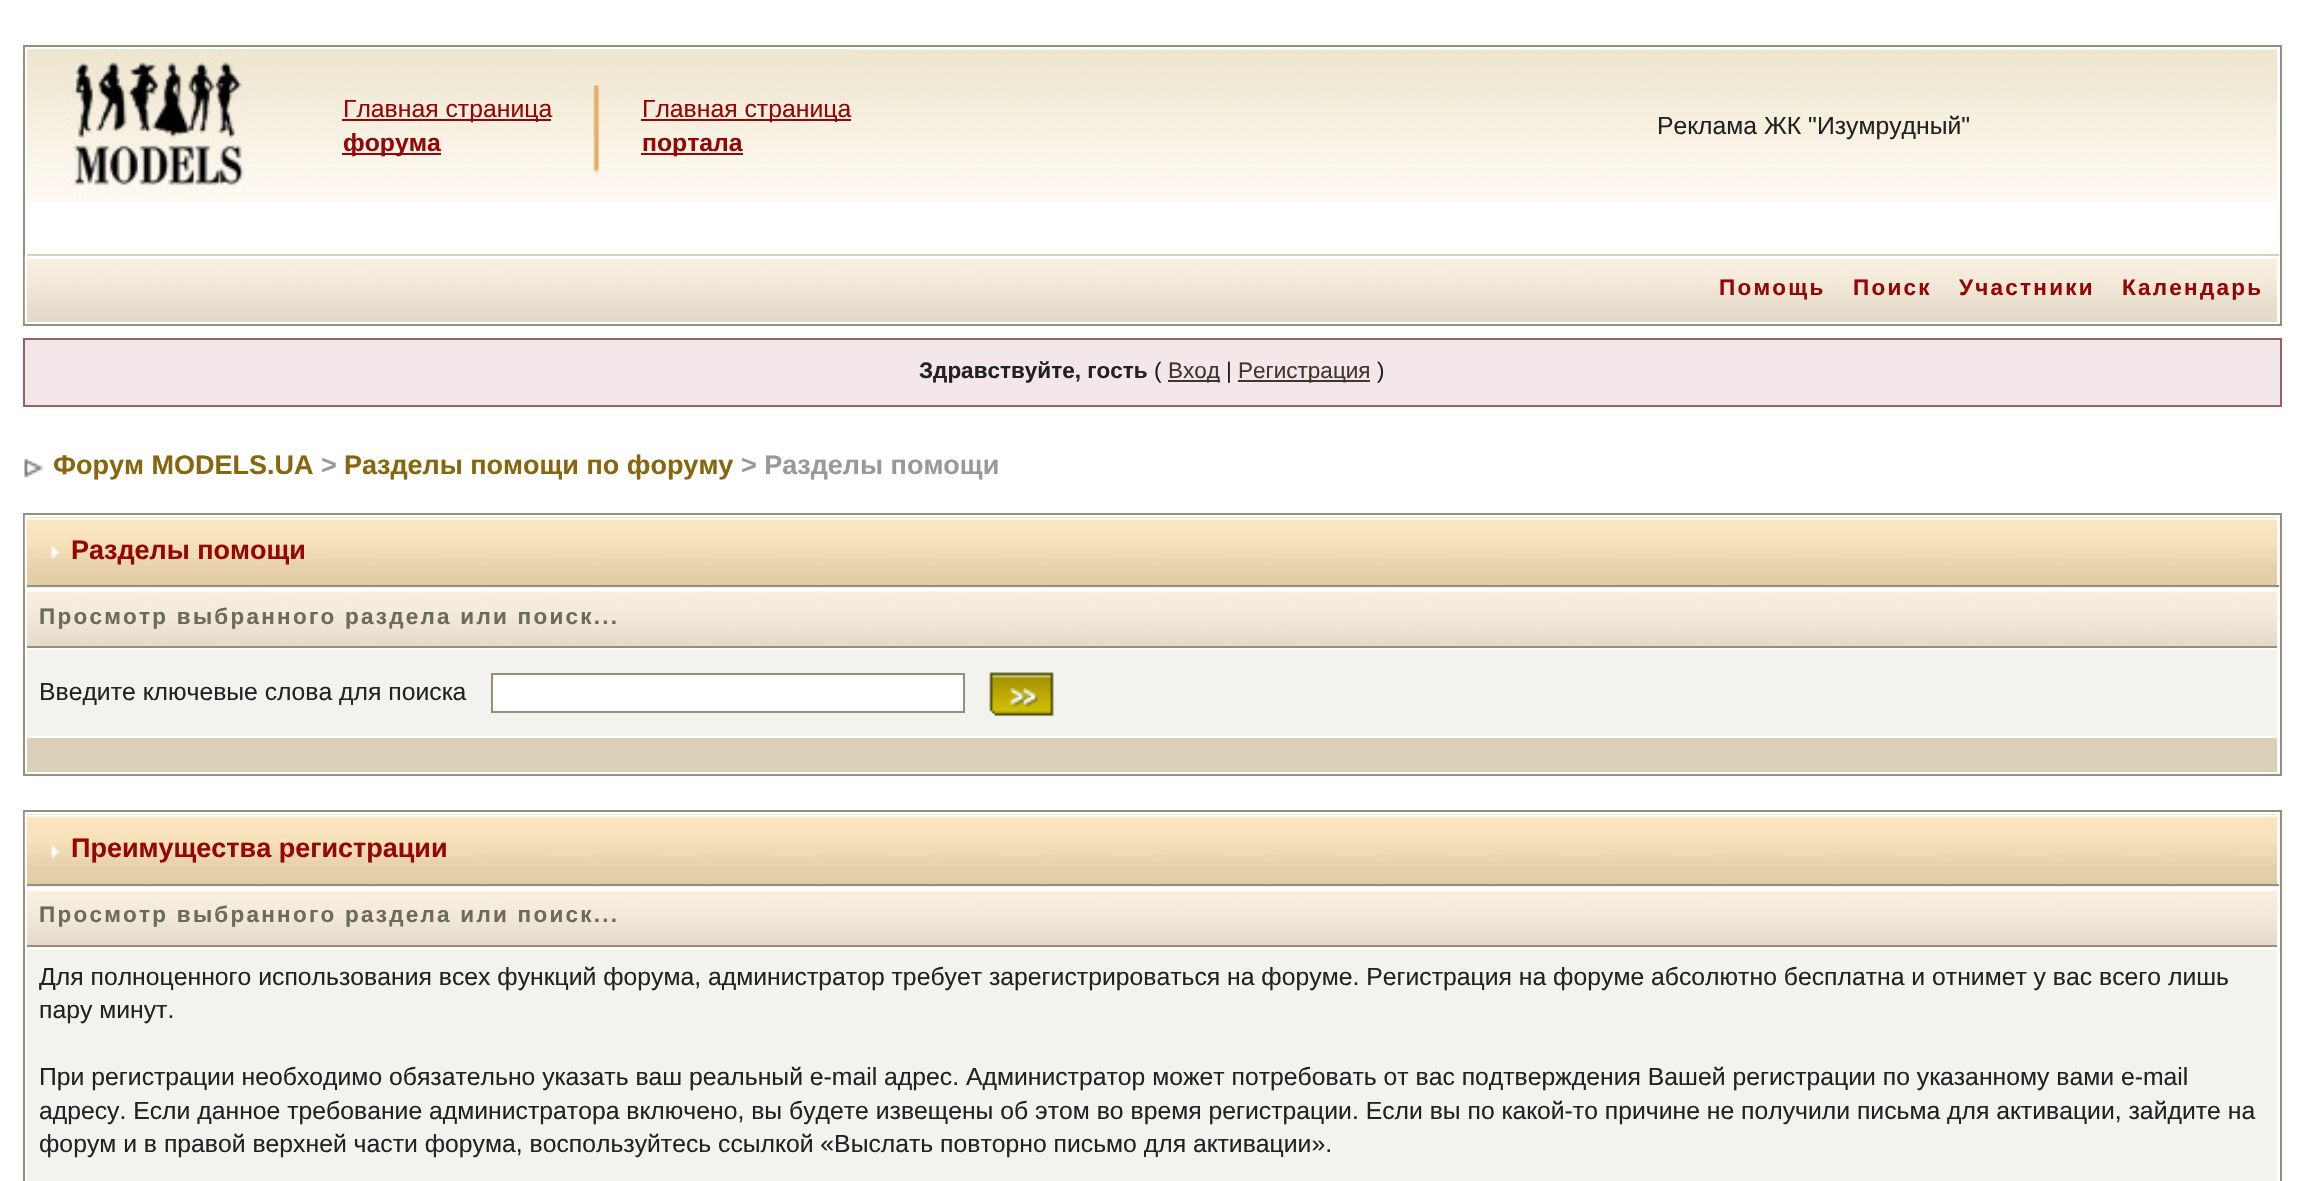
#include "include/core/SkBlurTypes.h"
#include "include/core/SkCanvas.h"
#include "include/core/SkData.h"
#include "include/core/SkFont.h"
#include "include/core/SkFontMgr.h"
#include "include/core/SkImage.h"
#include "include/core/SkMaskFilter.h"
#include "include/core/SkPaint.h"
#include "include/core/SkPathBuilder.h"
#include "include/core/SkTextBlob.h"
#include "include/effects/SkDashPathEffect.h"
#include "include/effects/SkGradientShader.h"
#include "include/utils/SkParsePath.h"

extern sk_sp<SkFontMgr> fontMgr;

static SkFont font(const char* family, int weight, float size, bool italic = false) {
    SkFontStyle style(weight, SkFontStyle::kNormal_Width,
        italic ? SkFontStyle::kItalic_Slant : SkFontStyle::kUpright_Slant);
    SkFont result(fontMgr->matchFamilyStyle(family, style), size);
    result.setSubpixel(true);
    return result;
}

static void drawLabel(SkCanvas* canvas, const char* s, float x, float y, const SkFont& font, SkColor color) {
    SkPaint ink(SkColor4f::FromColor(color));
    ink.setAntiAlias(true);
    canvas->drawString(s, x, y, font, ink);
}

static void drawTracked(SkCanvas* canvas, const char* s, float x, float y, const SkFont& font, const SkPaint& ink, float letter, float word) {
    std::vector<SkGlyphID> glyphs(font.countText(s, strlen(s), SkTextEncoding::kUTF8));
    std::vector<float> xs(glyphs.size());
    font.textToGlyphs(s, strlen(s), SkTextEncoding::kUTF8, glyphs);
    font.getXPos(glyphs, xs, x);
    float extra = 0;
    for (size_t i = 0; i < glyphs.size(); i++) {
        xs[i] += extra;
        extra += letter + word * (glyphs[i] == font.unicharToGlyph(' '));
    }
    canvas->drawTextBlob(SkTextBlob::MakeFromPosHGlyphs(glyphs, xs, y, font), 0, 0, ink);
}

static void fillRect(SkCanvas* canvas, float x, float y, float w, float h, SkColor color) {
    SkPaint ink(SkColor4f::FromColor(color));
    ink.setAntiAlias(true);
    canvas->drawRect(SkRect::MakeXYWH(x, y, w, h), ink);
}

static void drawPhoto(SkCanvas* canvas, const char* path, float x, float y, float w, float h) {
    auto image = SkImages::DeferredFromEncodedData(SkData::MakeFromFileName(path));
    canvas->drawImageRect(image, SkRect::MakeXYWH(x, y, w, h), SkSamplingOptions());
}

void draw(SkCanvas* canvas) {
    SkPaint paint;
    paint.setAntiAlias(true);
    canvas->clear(0xFFFFFFFF);
    paint.setStroke(true);
    paint.setStrokeWidth(2);
    paint.setColor(0xFF958F7E);
    canvas->drawRect(SkRect::MakeXYWH(24, 46, 2257, 279), paint);
    fillRect(canvas, 25, 254, 2254, 2, 0xFFD9D0B7);
    fillRect(canvas, 25, 254, 2, 3, 0xFFFFFFFF);
    drawPhoto(canvas, "assets/img1.png", 27, 49, 1629, 154);
    drawPhoto(canvas, "assets/img2.png", 551, 49, 300, 1);
    fillRect(canvas, 27, 49, 524, 1, 0xFFEFE8D5);
    drawPhoto(canvas, "assets/img3.png", 67, 49, 181, 146);
    drawPhoto(canvas, "assets/img4.png", 593, 85, 7, 87);
    fillRect(canvas, 342, 119, 209, 2, 0xFF960606);
    SkFont font1 = font("Liberation Sans", 400, 24.75f);
    drawLabel(canvas, "Главная страница", 343, 117, font1, 0xFF960606);
    fillRect(canvas, 342, 153, 99, 2, 0xFF960606);
    SkFont font2 = font("Liberation Sans", 700, 24.75f);
    drawLabel(canvas, "форума", 343, 151, font2, 0xFF960606);
    fillRect(canvas, 641, 119, 210, 2, 0xFF960606);
    drawLabel(canvas, "Главная страница", 642, 117, font1, 0xFF960606);
    fillRect(canvas, 641, 153, 102, 2, 0xFF960606);
    drawLabel(canvas, "портала", 642, 151, font2, 0xFF960606);
    drawPhoto(canvas, "assets/img5.png", 1656, 49, 621, 154);
    drawLabel(canvas, "Реклама ЖК \"Изумрудный\"", 1657, 134, font1, 0xFF222222);
    drawPhoto(canvas, "assets/img6.png", 24, 256, 2256, 68);
    fillRect(canvas, 2277, 257, 2, 67, 0xFFFFFFFF);
    fillRect(canvas, 25, 322, 2254, 2, 0xFFFFFFFF);
    fillRect(canvas, 25, 257, 2, 67, 0xFFFFFFFF);
    SkFont font3 = font("Liberation Sans", 700, 22.5f);
    paint.setStroke(false);
    paint.setColor(0xFF960606);
    drawTracked(canvas, "Помощь", 1719, 295, font3, paint, 2.25f, 0);
    drawTracked(canvas, "Поиск", 1853, 295, font3, paint, 2.25f, 0);
    drawTracked(canvas, "Участники", 1959, 295, font3, paint, 2.25f, 0);
    drawTracked(canvas, "Календарь", 2122, 295, font3, paint, 2.25f, 0);
    paint.setColor(0xFFF4E7EA);
    canvas->drawRect(SkRect::MakeXYWH(24, 339, 2257, 67), paint);
    paint.setStroke(true);
    paint.setColor(0xFF986265);
    canvas->drawRect(SkRect::MakeXYWH(24, 339, 2257, 67), paint);
    drawLabel(canvas, "Здравствуйте, гость", 919, 378, font3, 0xFF222222);
    SkFont font4 = font("Liberation Sans", 400, 22.5f);
    drawLabel(canvas, "(", 1154, 378, font4, 0xFF222222);
    fillRect(canvas, 1168, 380, 52, 2, 0xFF3F362D);
    drawLabel(canvas, "Вход", 1168, 378, font4, 0xFF3F362D);
    drawLabel(canvas, "|", 1226, 378, font4, 0xFF222222);
    fillRect(canvas, 1238, 380, 132, 2, 0xFF3F362D);
    drawLabel(canvas, "Регистрация", 1238, 378, font4, 0xFF3F362D);
    drawLabel(canvas, ")", 1377, 378, font4, 0xFF222222);
    drawPhoto(canvas, "assets/img7.png", 24, 458, 20, 20);
    SkFont font5 = font("Liberation Sans", 700, 27);
    drawLabel(canvas, "Форум MODELS.UA", 53, 474, font5, 0xFF87660E);
    drawLabel(canvas, ">", 321, 474, font5, 0xFF999999);
    drawLabel(canvas, "Разделы помощи по форуму", 344, 474, font5, 0xFF87660E);
    drawLabel(canvas, "> Разделы помощи", 741, 474, font5, 0xFF999999);
    paint.setColor(0xFF958F7E);
    canvas->drawRect(SkRect::MakeXYWH(24, 514, 2257, 261), paint);
    drawPhoto(canvas, "assets/img8.png", 24, 515, 2256, 73);
    fillRect(canvas, 25, 515, 2254, 2, 0xFFFFFFFF);
    fillRect(canvas, 2277, 515, 2, 72, 0xFFFFFFFF);
    fillRect(canvas, 25, 585, 2254, 2, 0xFF958F7E);
    fillRect(canvas, 25, 515, 2, 72, 0xFFFFFFFF);
    drawPhoto(canvas, "assets/img9.png", 51, 546, 9, 13);
    drawLabel(canvas, "Разделы помощи", 71, 559, font5, 0xFF960606);
    drawPhoto(canvas, "assets/img10.png", 27, 591, 2250, 55);
    fillRect(canvas, 27, 646, 2250, 2, 0xFF958F7E);
    paint.setStroke(false);
    paint.setColor(0xFF6C6A59);
    drawTracked(canvas, "Просмотр выбранного раздела или поиск...", 39, 624, font3, paint, 2.25f, 0);
    fillRect(canvas, 27, 650, 2250, 86, 0xFFF4F2EE);
    drawLabel(canvas, "Введите ключевые слова для поиска", 39, 700, font1, 0xFF222222);
    paint.setColor(0xFFFFFFFF);
    canvas->drawRect(SkRect::MakeXYWH(492, 674, 472, 38), paint);
    paint.setStroke(true);
    paint.setColor(0xFF958F7E);
    canvas->drawRect(SkRect::MakeXYWH(492, 674, 472, 38), paint);
    drawPhoto(canvas, "assets/img11.png", 989, 672, 65, 45);
    fillRect(canvas, 27, 738, 2250, 34, 0xFFD9D0B7);
    canvas->drawRect(SkRect::MakeXYWH(24, 811, 2257, 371), paint);
    drawPhoto(canvas, "assets/img12.png", 24, 812, 2256, 75);
    fillRect(canvas, 25, 812, 2254, 2, 0xFFFFFFFF);
    fillRect(canvas, 2277, 812, 2, 75, 0xFFFFFFFF);
    fillRect(canvas, 25, 884, 2254, 2, 0xFF958F7E);
    fillRect(canvas, 25, 812, 2, 75, 0xFFFFFFFF);
    drawPhoto(canvas, "assets/img13.png", 51, 845, 9, 13);
    drawLabel(canvas, "Преимущества регистрации", 71, 857, font5, 0xFF960606);
    drawPhoto(canvas, "assets/img14.png", 27, 890, 2250, 58);
    fillRect(canvas, 27, 945, 2250, 2, 0xFF958F7E);
    paint.setStroke(false);
    paint.setColor(0xFF6C6A59);
    drawTracked(canvas, "Просмотр выбранного раздела или поиск...", 39, 922, font3, paint, 2.25f, 0);
    fillRect(canvas, 27, 950, 2250, 231, 0xFFF4F2EE);
    drawLabel(canvas, "Для полноценного использования всех функций форума, администратор требует зарегистрироваться на форуме. Регистрация на форуме абсолютно бесплатна и отнимет у вас всего лишь", 39, 985, font1, 0xFF222222);
    drawLabel(canvas, "пару минут.", 39, 1018, font1, 0xFF222222);
    drawLabel(canvas, "При регистрации необходимо обязательно указать ваш реальный e-mail адрес. Администратор может потребовать от вас подтверждения Вашей регистрации по указанному вами e-mail", 39, 1085, font1, 0xFF222222);
    drawLabel(canvas, "адресу. Если данное требование администратора включено, вы будете извещены об этом во время регистрации. Если вы по какой-то причине не получили письма для активации, зайдите на", 39, 1119, font1, 0xFF222222);
    drawLabel(canvas, "форум и в правой верхней части форума, воспользуйтесь ссылкой «Выслать повторно письмо для активации».", 39, 1152, font1, 0xFF222222);
}
